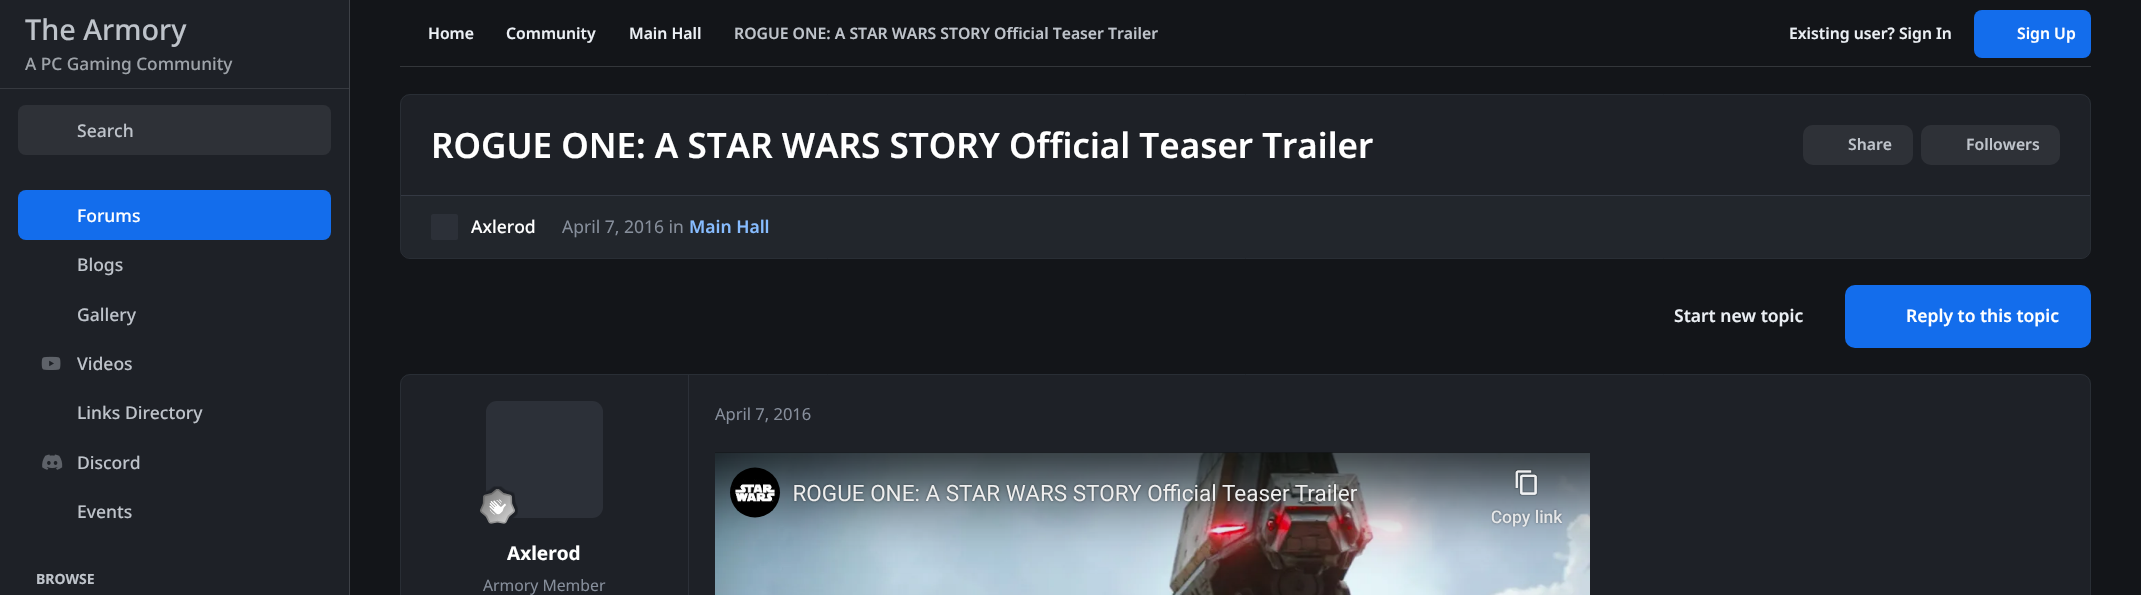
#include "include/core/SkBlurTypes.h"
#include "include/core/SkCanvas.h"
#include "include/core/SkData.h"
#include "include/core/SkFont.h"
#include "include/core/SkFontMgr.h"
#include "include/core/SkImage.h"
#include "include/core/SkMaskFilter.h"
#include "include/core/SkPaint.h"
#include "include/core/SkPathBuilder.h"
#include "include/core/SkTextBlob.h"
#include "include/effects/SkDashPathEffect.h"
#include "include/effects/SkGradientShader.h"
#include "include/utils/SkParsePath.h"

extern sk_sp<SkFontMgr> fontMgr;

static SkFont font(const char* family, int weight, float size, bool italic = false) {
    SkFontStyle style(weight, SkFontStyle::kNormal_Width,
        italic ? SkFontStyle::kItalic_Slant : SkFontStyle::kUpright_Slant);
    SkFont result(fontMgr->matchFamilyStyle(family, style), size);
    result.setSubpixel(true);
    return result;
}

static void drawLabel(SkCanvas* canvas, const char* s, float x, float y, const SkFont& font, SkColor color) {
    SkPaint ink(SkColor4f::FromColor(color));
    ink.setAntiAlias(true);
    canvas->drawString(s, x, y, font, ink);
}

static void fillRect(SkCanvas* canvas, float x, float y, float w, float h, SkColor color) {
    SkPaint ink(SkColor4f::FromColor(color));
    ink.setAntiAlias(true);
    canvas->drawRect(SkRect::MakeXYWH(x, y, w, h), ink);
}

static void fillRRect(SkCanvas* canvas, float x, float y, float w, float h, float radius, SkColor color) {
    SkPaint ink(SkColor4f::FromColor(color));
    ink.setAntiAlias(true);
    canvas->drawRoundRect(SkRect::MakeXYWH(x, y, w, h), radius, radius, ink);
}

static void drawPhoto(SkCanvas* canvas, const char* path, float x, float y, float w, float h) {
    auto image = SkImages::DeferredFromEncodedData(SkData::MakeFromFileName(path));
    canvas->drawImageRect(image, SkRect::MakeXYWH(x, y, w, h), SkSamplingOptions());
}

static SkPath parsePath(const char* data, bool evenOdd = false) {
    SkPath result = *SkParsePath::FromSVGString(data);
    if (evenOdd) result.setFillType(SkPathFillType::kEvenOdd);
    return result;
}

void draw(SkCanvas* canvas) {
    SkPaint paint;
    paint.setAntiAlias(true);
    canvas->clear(0xFF131519);
    fillRect(canvas, 0, 0, 349, 595, 0xFF1E2127);
    fillRect(canvas, 349, 0, 1, 595, 0xFF3E4147);
    paint.setColor(0xFF36393F);
    canvas->drawPath(parsePath("M0 88V89H349V1V88Z"), paint);
    SkFont font1 = font("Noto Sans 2", 500, 28.75f);
    drawLabel(canvas, "The Armory", 25, 40, font1, 0xFFBEC3CA);
    SkFont font2 = font("Noto Sans 2", 500, 17.25f);
    drawLabel(canvas, "A PC Gaming Community", 25, 70, font2, 0xFF9EA3A9);
    fillRRect(canvas, 18, 105, 313, 50, 8, 0xFF2E3137);
    SkFont font3 = font("Noto Sans", 500, 17.5f);
    drawLabel(canvas, "Search", 77, 137, font3, 0xFFBEC3CA);
    fillRRect(canvas, 18, 190, 313, 50, 8, 0xFF136DEC);
    drawLabel(canvas, "Forums", 77, 222, font3, 0xFFFFFFFF);
    drawLabel(canvas, "Blogs", 77, 271, font3, 0xFFBEC3CA);
    drawLabel(canvas, "Gallery", 77, 321, font3, 0xFFBEC3CA);
    drawPhoto(canvas, "assets/img1.png", 41, 356, 20, 14);
    drawLabel(canvas, "Videos", 77, 370, font3, 0xFFBEC3CA);
    drawLabel(canvas, "Links Directory", 77, 419, font3, 0xFFBEC3CA);
    drawPhoto(canvas, "assets/img2.png", 42, 454, 21, 16);
    drawLabel(canvas, "Discord", 77, 469, font3, 0xFFBEC3CA);
    drawLabel(canvas, "Events", 77, 518, font3, 0xFFBEC3CA);
    SkFont font4 = font("Noto Sans", 700, 14);
    drawLabel(canvas, "BROWSE", 36, 584, font4, 0xFFBEC3CA);
    fillRect(canvas, 400, 66, 1691, 1, 0xFF33363A);
    SkFont font5 = font("Noto Sans", 600, 15.75f);
    drawLabel(canvas, "Home", 428, 39, font5, 0xFFEBEFF4);
    drawLabel(canvas, "Community", 506, 39, font5, 0xFFEBEFF4);
    drawLabel(canvas, "Main Hall", 629, 39, font5, 0xFFEBEFF4);
    drawLabel(canvas, "ROGUE ONE: A STAR WARS STORY Official Teaser Trailer", 734, 39, font5, 0xFFBEC3CA);
    drawLabel(canvas, "Existing user? Sign In", 1789, 39, font5, 0xFFEBEFF4);
    fillRRect(canvas, 1974, 10, 117, 48, 8, 0xFF136DEC);
    drawLabel(canvas, "Sign Up", 2017, 39, font5, 0xFFFFFFFF);
    paint.setColor(0xFF1E2127);
    canvas->drawRoundRect(SkRect::MakeXYWH(400.5f, 94.5f, 1690, 164), 9.5f, 9.5f, paint);
    paint.setStroke(true);
    paint.setStrokeWidth(1);
    paint.setColor(0xFF292E35);
    canvas->drawRoundRect(SkRect::MakeXYWH(400.5f, 94.5f, 1690, 164), 9.5f, 9.5f, paint);
    SkFont font6 = font("Noto Sans", 600, 35);
    drawLabel(canvas, "ROGUE ONE: A STAR WARS STORY Official Teaser Trailer", 431, 158, font6, 0xFFFFFFFF);
    fillRRect(canvas, 1803, 125, 110, 40, 10, 0xFF2E3137);
    drawLabel(canvas, "Share", 1848, 150, font5, 0xFFBEC3CA);
    fillRRect(canvas, 1921, 125, 139, 40, 10, 0xFF2E3137);
    drawLabel(canvas, "Followers", 1966, 150, font5, 0xFFBEC3CA);
    paint.setStroke(false);
    paint.setColor(0xFF22262C);
    canvas->drawPath(parsePath("M401 195H2090V248C2090 253.5 2085.5 258 2080 258H411C405.5 258 401 253.5 401 248Z"), paint);
    fillRect(canvas, 401, 195, 1689, 1, 0xFF343943);
    fillRRect(canvas, 431, 214, 27, 26, 2.5f, 0xFF2C3038);
    drawLabel(canvas, "Axlerod", 471, 233, font3, 0xFFFFFFFF);
    SkFont font7 = font("Noto Sans", 400, 17.5f);
    drawLabel(canvas, "April 7, 2016 in", 562, 233, font7, 0xFF868E9B);
    SkFont font8 = font("Noto Sans", 600, 17.5f);
    drawLabel(canvas, "Main Hall", 689, 233, font8, 0xFF87BCFF);
    drawLabel(canvas, "Start new topic", 1674, 322, font8, 0xFFEBEFF4);
    fillRRect(canvas, 1845, 285, 246, 63, 10, 0xFF136DEC);
    drawLabel(canvas, "Reply to this topic", 1906, 322, font8, 0xFFFFFFFF);
    paint.setColor(0xFF1E2127);
    canvas->drawRoundRect(SkRect::MakeXYWH(400.5f, 374.5f, 1690, 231), 9.5f, 9.5f, paint);
    paint.setStroke(true);
    paint.setColor(0xFF292E35);
    canvas->drawRoundRect(SkRect::MakeXYWH(400.5f, 374.5f, 1690, 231), 9.5f, 9.5f, paint);
    SkFont font9 = font("Noto Sans", 400, 16.5f);
    drawLabel(canvas, "April 7, 2016", 715, 420, font9, 0xFF868E9B);
    drawPhoto(canvas, "assets/img3.png", 715, 452, 875, 143);
    fillRect(canvas, 688, 375, 1, 220, 0xFF2C3038);
    fillRRect(canvas, 486, 401, 117, 117, 11, 0xFF2C3038);
    drawPhoto(canvas, "assets/img4.png", 480, 486, 38, 38);
    SkFont font10 = font("Noto Sans", 700, 19);
    drawLabel(canvas, "Axlerod", 507, 560, font10, 0xFFFFFFFF);
    SkFont font11 = font("Noto Sans", 400, 15.75f);
    drawLabel(canvas, "Armory Member", 483, 591, font11, 0xFF868E9B);
}
